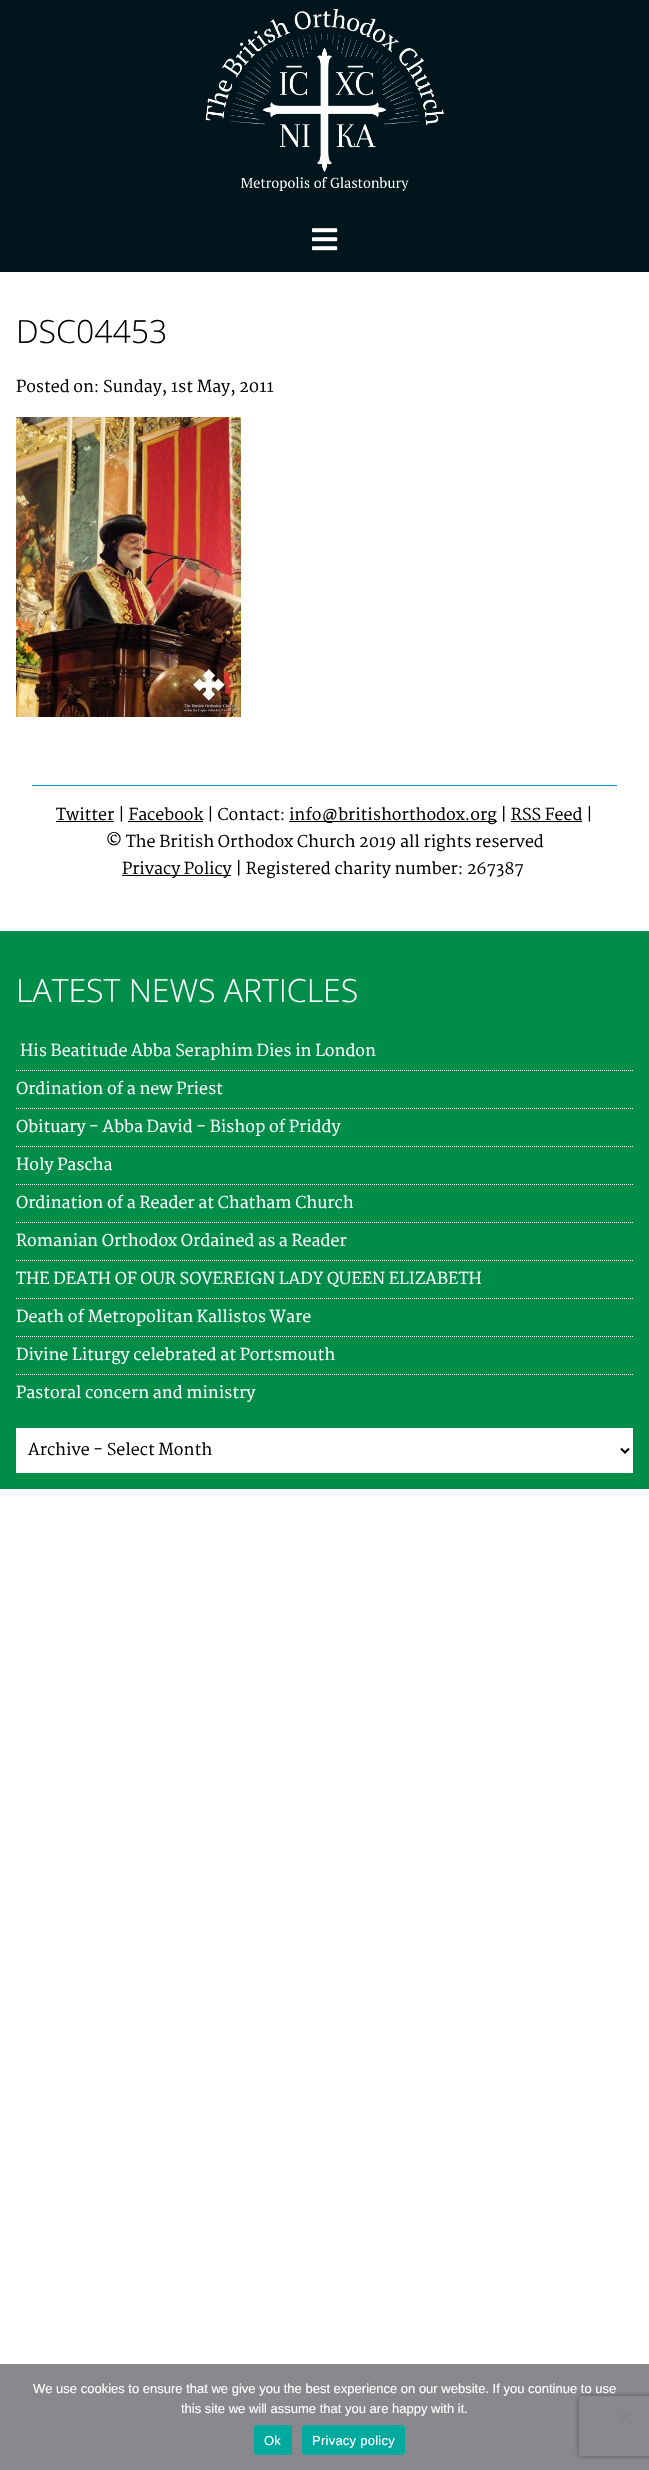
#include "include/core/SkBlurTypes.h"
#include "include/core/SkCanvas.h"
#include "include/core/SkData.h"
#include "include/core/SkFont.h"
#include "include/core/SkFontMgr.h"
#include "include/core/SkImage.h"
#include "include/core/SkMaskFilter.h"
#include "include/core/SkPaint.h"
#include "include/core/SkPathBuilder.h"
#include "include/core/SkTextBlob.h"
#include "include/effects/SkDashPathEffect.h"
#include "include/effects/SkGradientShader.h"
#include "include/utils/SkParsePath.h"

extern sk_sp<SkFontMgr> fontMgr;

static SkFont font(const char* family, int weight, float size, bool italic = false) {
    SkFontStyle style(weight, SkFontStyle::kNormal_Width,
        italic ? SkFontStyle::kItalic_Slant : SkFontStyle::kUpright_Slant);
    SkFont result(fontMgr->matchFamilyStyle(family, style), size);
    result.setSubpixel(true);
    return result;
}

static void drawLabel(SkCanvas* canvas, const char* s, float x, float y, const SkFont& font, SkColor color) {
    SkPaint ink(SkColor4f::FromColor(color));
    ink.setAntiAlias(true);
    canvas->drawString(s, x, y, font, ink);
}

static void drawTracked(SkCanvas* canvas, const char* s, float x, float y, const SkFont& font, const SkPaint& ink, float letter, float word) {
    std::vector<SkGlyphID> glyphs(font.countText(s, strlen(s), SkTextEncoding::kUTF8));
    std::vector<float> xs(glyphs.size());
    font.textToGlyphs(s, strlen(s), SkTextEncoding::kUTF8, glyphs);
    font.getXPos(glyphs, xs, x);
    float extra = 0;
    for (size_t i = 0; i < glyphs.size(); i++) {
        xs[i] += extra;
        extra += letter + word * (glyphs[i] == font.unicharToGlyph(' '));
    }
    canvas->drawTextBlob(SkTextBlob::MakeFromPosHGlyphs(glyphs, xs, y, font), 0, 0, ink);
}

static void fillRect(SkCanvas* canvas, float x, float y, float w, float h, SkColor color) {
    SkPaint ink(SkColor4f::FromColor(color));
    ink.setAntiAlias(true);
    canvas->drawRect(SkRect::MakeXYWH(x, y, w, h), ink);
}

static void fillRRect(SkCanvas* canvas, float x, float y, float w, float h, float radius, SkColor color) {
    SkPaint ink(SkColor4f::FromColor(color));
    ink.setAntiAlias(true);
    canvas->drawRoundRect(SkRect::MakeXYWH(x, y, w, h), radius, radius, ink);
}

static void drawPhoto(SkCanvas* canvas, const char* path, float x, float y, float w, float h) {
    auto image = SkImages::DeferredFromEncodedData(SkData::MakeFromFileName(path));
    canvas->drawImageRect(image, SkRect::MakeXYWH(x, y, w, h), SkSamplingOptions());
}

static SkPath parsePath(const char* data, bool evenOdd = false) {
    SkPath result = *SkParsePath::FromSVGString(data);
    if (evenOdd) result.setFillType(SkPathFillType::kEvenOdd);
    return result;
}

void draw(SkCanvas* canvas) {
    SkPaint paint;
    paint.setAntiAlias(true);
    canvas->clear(0xFFFFFFFF);
    fillRect(canvas, 0, 2364, 649, 106, 0xFF88888D);
    fillRect(canvas, 0, 0, 649, 272, 0xFF00151C);
    drawPhoto(canvas, "assets/img1.png", 205, 9, 239, 182);
    drawPhoto(canvas, "assets/img2.png", 312, 228, 26, 23);
    SkFont font1 = font("Open Sans", 300, 32);
    drawLabel(canvas, "DSC04453", 16, 343, font1, 0xFF000000);
    SkFont font2 = font("Martel", 400, 16);
    drawLabel(canvas, "Posted on: Sunday, 1st May, 2011", 16, 392, font2, 0xFF000000);
    drawPhoto(canvas, "assets/img3.png", 16, 417, 225, 300);
    fillRect(canvas, 32, 785, 585, 1, 0xFF0091CC);
    fillRect(canvas, 56, 821, 58, 1, 0xFF000000);
    drawLabel(canvas, "Twitter | Facebook | Contact:", 56, 820, font2, 0xFF000000);
    fillRect(canvas, 289, 821, 208, 1, 0xFF000000);
    drawLabel(canvas, "info@britishorthodox.org | RSS Feed |", 289, 820, font2, 0xFF000000);
    fillRect(canvas, 128, 821, 75, 1, 0xFF000000);
    fillRect(canvas, 511, 821, 71, 1, 0xFF000000);
    drawLabel(canvas, "© The British Orthodox Church 2019 all rights reserved", 106, 847, font2, 0xFF000000);
    fillRect(canvas, 122, 875, 109, 1, 0xFF000000);
    drawLabel(canvas, "Privacy Policy | Registered charity number: 267387", 122, 874, font2, 0xFF000000);
    fillRect(canvas, 0, 931, 649, 558, 0xFF008C49);
    drawLabel(canvas, "LATEST NEWS ARTICLES", 16, 1002, font1, 0xFFFFFFFF);
    paint.setStroke(true);
    paint.setStrokeWidth(1);
    paint.setColor(0xFFFFFFFF);
    paint.setPathEffect(SkDashPathEffect::Make({{1, 1}}, 0));
    canvas->drawPath(parsePath("M16 1070.5H633"), paint);
    paint.setPathEffect(nullptr);
    drawLabel(canvas, "His Beatitude Abba Seraphim Dies in London", 20, 1056, font2, 0xFFFFFFFF);
    paint.setPathEffect(SkDashPathEffect::Make({{1, 1}}, 0));
    canvas->drawPath(parsePath("M16 1108.5H633"), paint);
    paint.setPathEffect(nullptr);
    drawLabel(canvas, "Ordination of a new Priest", 16, 1094, font2, 0xFFFFFFFF);
    paint.setPathEffect(SkDashPathEffect::Make({{1, 1}}, 0));
    canvas->drawPath(parsePath("M16 1146.5H633"), paint);
    paint.setPathEffect(nullptr);
    drawLabel(canvas, "Obituary - Abba David - Bishop of Priddy", 16, 1132, font2, 0xFFFFFFFF);
    paint.setPathEffect(SkDashPathEffect::Make({{1, 1}}, 0));
    canvas->drawPath(parsePath("M16 1184.5H633"), paint);
    paint.setPathEffect(nullptr);
    drawLabel(canvas, "Holy Pascha", 16, 1170, font2, 0xFFFFFFFF);
    paint.setPathEffect(SkDashPathEffect::Make({{1, 1}}, 0));
    canvas->drawPath(parsePath("M16 1222.5H633"), paint);
    paint.setPathEffect(nullptr);
    drawLabel(canvas, "Ordination of a Reader at Chatham Church", 16, 1208, font2, 0xFFFFFFFF);
    paint.setPathEffect(SkDashPathEffect::Make({{1, 1}}, 0));
    canvas->drawPath(parsePath("M16 1260.5H633"), paint);
    paint.setPathEffect(nullptr);
    drawLabel(canvas, "Romanian Orthodox Ordained as a Reader", 16, 1246, font2, 0xFFFFFFFF);
    paint.setPathEffect(SkDashPathEffect::Make({{1, 1}}, 0));
    canvas->drawPath(parsePath("M16 1298.5H633"), paint);
    paint.setPathEffect(nullptr);
    drawLabel(canvas, "THE DEATH OF OUR SOVEREIGN LADY QUEEN ELIZABETH", 16, 1284, font2, 0xFFFFFFFF);
    paint.setPathEffect(SkDashPathEffect::Make({{1, 1}}, 0));
    canvas->drawPath(parsePath("M16 1336.5H633"), paint);
    paint.setPathEffect(nullptr);
    drawLabel(canvas, "Death of Metropolitan Kallistos Ware", 16, 1322, font2, 0xFFFFFFFF);
    paint.setPathEffect(SkDashPathEffect::Make({{1, 1}}, 0));
    canvas->drawPath(parsePath("M16 1374.5H633"), paint);
    paint.setPathEffect(nullptr);
    drawLabel(canvas, "Divine Liturgy celebrated at Portsmouth", 16, 1360, font2, 0xFFFFFFFF);
    drawLabel(canvas, "Pastoral concern and ministry", 16, 1398, font2, 0xFFFFFFFF);
    fillRect(canvas, 16, 1428, 617, 45, 0xFFFFFFFF);
    paint.setStrokeWidth(2);
    paint.setColor(0xFF000000);
    canvas->drawPath(parsePath("M621 1448.5L625 1452.5L629 1448.5"), paint);
    drawLabel(canvas, "Archive - Select Month", 28, 1455, font2, 0xFF000000);
    canvas->save();
    canvas->clipPath(parsePath("M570 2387H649V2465H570ZM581 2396H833C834 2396 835 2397 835 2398V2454C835 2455 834 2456 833 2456H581C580 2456 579 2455 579 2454V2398C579 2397 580 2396 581 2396Z", true), true);
    paint.setStroke(false);
    paint.setColor(0xFF535357);
    paint.setMaskFilter(SkMaskFilter::MakeBlur(kNormal_SkBlurStyle, 2.5f));
    canvas->drawRoundRect(SkRect::MakeXYWH(579, 2396, 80, 60), 2, 2, paint);
    paint.setMaskFilter(nullptr);
    canvas->restore();
    SkFont font3 = font("Liberation Sans", 400, 13);
    drawLabel(canvas, "We use cookies to ensure that we give you the best experience on our website. If you continue to use", 33, 2393, font3, 0xFFFFFFFF);
    drawLabel(canvas, "this site we will assume that you are happy with it.", 181, 2413, font3, 0xFFFFFFFF);
    paint.setColor(0xFF848486);
    canvas->drawPath(parsePath("M629.5 2411.5L631 2413L620.5 2423.5L619 2422Z"), paint);
    canvas->drawPath(parsePath("M619 2413L620.5 2411.5L631 2422L629.5 2423.5Z"), paint);
    fillRRect(canvas, 254, 2425, 38, 30, 3, 0xFF00A99D);
    paint.setColor(0xFFFFFFFF);
    drawTracked(canvas, "Ok", 264, 2445, font3, paint, 0.25f, 0);
    fillRRect(canvas, 302, 2425, 103, 30, 3, 0xFF00A99D);
    drawTracked(canvas, "Privacy policy", 312, 2445, font3, paint, 0.25f, 0);
}
